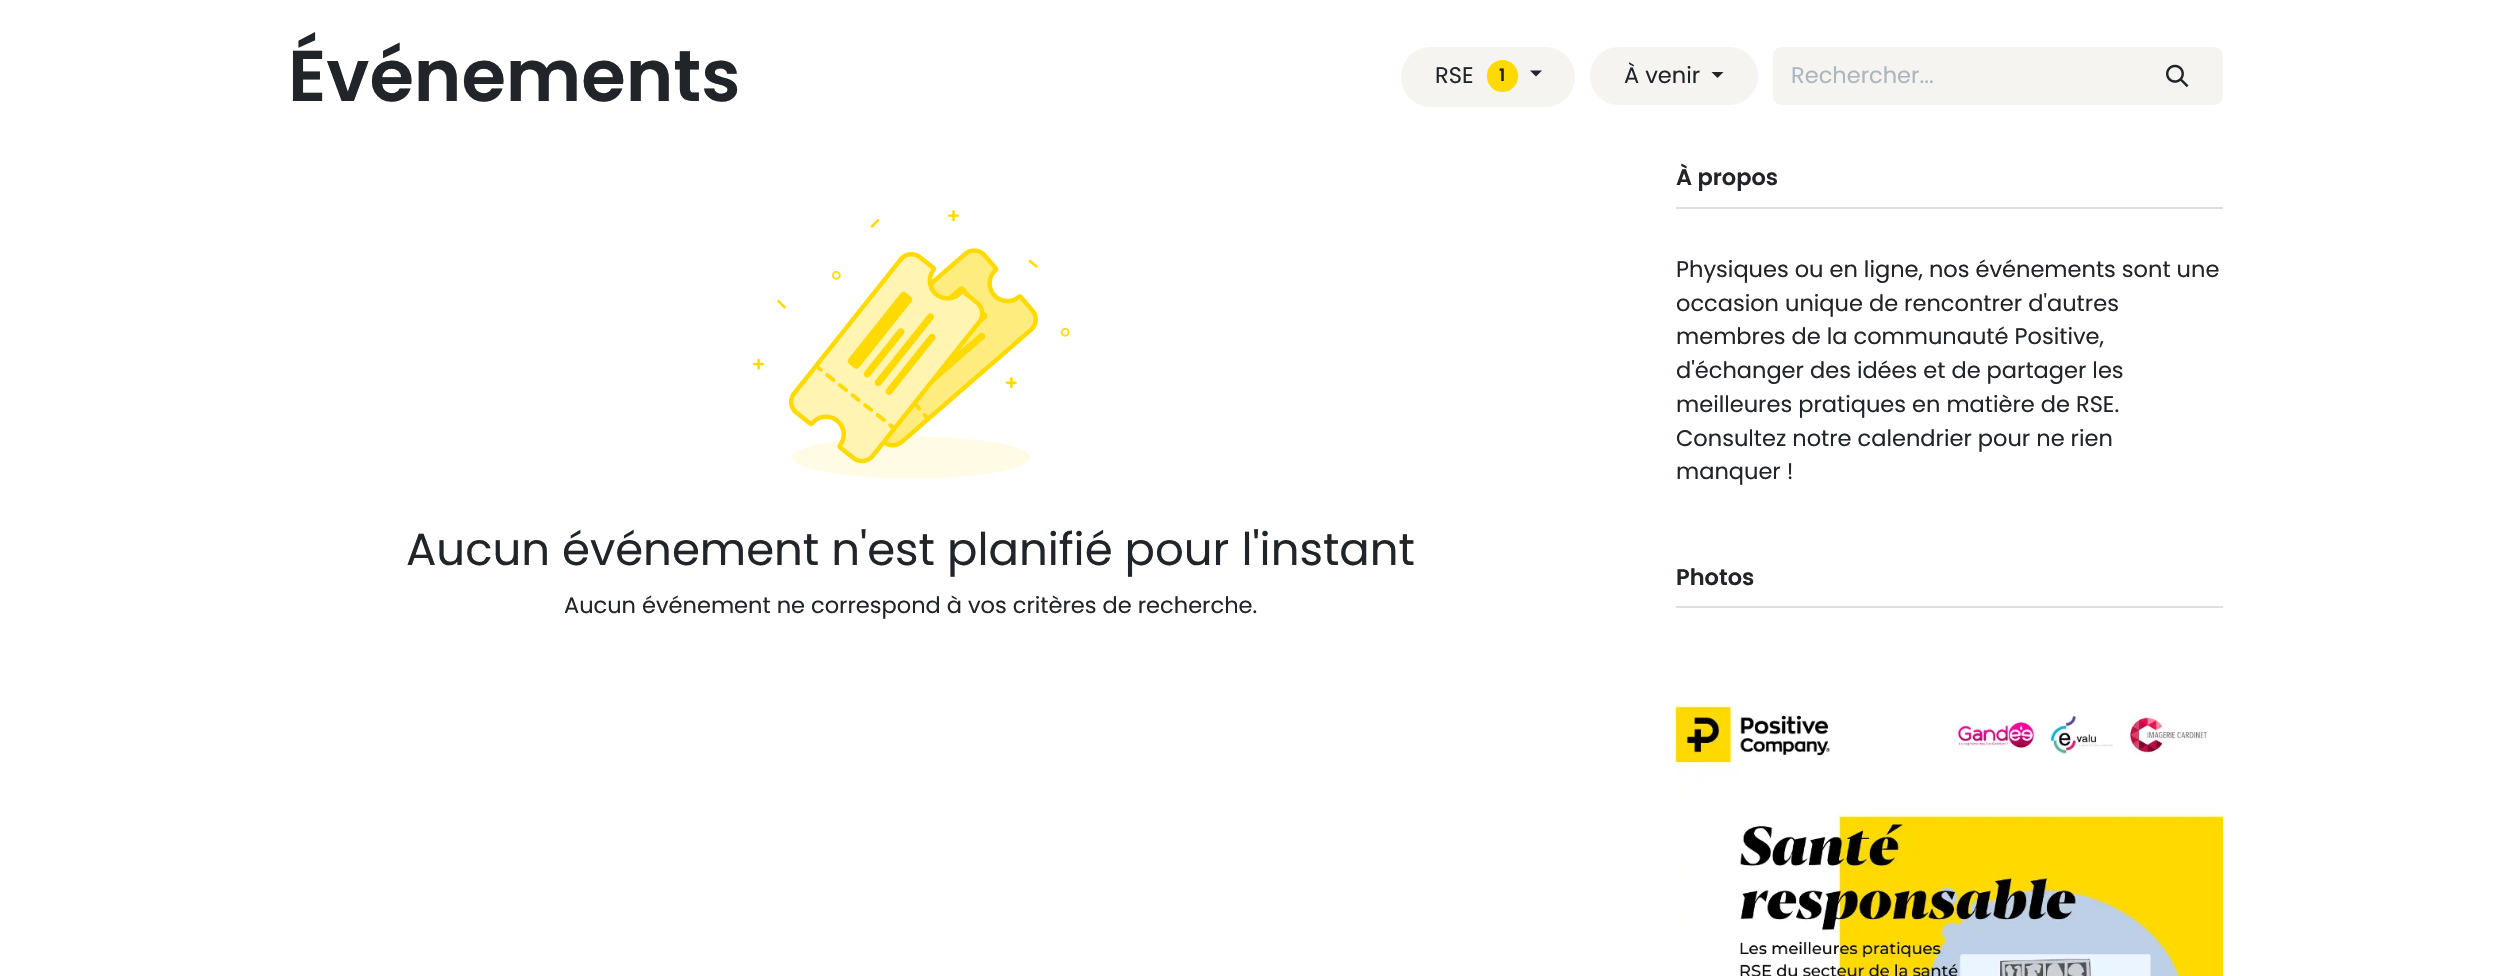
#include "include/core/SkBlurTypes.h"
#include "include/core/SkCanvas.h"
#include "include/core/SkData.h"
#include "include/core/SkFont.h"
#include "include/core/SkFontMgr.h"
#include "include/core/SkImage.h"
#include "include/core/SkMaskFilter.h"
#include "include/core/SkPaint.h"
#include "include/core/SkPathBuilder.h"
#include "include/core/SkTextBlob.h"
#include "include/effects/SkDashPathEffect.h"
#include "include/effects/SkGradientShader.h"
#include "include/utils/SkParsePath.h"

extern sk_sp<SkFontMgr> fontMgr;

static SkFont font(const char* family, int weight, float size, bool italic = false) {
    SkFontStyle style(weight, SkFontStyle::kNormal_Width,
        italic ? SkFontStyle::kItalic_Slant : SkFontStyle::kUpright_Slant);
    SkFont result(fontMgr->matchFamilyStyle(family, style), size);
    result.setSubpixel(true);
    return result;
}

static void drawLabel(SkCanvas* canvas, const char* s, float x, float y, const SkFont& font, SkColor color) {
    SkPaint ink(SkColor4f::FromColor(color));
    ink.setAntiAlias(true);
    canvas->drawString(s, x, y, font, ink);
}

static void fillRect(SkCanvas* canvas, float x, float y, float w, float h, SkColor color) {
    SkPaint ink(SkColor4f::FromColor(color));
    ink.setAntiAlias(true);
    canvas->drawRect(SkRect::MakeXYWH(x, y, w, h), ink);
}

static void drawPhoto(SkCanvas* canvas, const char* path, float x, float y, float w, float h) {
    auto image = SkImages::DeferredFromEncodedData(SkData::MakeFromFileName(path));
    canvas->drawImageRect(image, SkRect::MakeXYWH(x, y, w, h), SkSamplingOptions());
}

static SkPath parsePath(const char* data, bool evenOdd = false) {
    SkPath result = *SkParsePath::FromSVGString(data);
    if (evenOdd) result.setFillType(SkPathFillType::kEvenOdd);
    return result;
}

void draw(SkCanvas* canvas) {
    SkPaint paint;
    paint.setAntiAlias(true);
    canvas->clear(0xFFFFFFFF);
    SkFont font1 = font("Poppins", 600, 72);
    drawLabel(canvas, "Événements", 288, 101, font1, 0xFF212529);
    paint.setColor(0xFFF5F4F0);
    canvas->drawRoundRect(SkRect::MakeXYWH(1402, 48, 172, 58), 29, 29, paint);
    paint.setStroke(true);
    paint.setStrokeWidth(2);
    canvas->drawRoundRect(SkRect::MakeXYWH(1402, 48, 172, 58), 29, 29, paint);
    SkFont font2 = font("Poppins", 400, 22.5f);
    drawLabel(canvas, "RSE", 1435, 83, font2, 0xFF212529);
    paint.setStroke(false);
    paint.setColor(0xFFFFDA00);
    canvas->drawRoundRect(SkRect::MakeXYWH(1488, 61, 29, 30), 14.5f, 14.5f, paint);
    paint.setStroke(true);
    canvas->drawRoundRect(SkRect::MakeXYWH(1488, 61, 29, 30), 14.5f, 14.5f, paint);
    SkFont font3 = font("Poppins", 600, 17);
    drawLabel(canvas, "1", 1499, 81, font3, 0xFF212529);
    paint.setStroke(false);
    paint.setColor(0xFF212529);
    canvas->drawPath(parsePath("M1530 70.5H1542L1536 76.5Z"), paint);
    paint.setColor(0xFFF5F4F0);
    canvas->drawRoundRect(SkRect::MakeXYWH(1591, 48, 166, 56), 28, 28, paint);
    paint.setStroke(true);
    canvas->drawRoundRect(SkRect::MakeXYWH(1591, 48, 166, 56), 28, 28, paint);
    drawLabel(canvas, "À venir", 1624, 83, font2, 0xFF212529);
    paint.setStroke(false);
    paint.setColor(0xFF212529);
    canvas->drawPath(parsePath("M1711.5 72H1723.5L1717.5 78Z"), paint);
    paint.setColor(0xFFF5F4F0);
    canvas->drawPath(parsePath("M1782 47H2135V105H1782C1777 105 1773 101 1773 96V56C1773 51 1777 47 1782 47Z"), paint);
    drawLabel(canvas, "Rechercher...", 1791, 83, font2, 0xFFADB5BD);
    canvas->drawPath(parsePath("M2134 48H2214C2218.5 48 2222 51.5 2222 56V96C2222 100.5 2218.5 104 2214 104H2134Z"), paint);
    paint.setStroke(true);
    canvas->drawPath(parsePath("M2134 48H2214C2218.5 48 2222 51.5 2222 56V96C2222 100.5 2218.5 104 2214 104H2134Z"), paint);
    drawPhoto(canvas, "assets/img1.png", 2166, 64, 23, 24);
    drawPhoto(canvas, "assets/img2.png", 753, 210, 317, 269);
    SkFont font4 = font("Poppins", 400, 45);
    drawLabel(canvas, "Aucun événement n'est planifié pour l'instant", 406, 565, font4, 0xFF212529);
    drawLabel(canvas, "Aucun événement ne correspond à vos critères de recherche.", 564, 613, font2, 0xFF212529);
    fillRect(canvas, 1676, 207, 547, 2, 0xFFDEDEDF);
    SkFont font5 = font("Poppins", 600, 22.5f);
    drawLabel(canvas, "À propos", 1676, 185, font5, 0xFF212529);
    drawLabel(canvas, "Physiques ou en ligne, nos événements sont une", 1676, 277, font2, 0xFF212529);
    drawLabel(canvas, "occasion unique de rencontrer d'autres", 1676, 311, font2, 0xFF212529);
    drawLabel(canvas, "membres de la communauté Positive,", 1676, 344, font2, 0xFF212529);
    drawLabel(canvas, "d'échanger des idées et de partager les", 1676, 378, font2, 0xFF212529);
    drawLabel(canvas, "meilleures pratiques en matière de RSE.", 1676, 412, font2, 0xFF212529);
    drawLabel(canvas, "Consultez notre calendrier pour ne rien", 1676, 446, font2, 0xFF212529);
    drawLabel(canvas, "manquer !", 1676, 479, font2, 0xFF212529);
    fillRect(canvas, 1676, 606, 547, 2, 0xFFDEDEDF);
    drawLabel(canvas, "Photos", 1676, 585, font5, 0xFF212529);
    drawPhoto(canvas, "assets/img3.png", 1675, 704, 548, 272);
}
